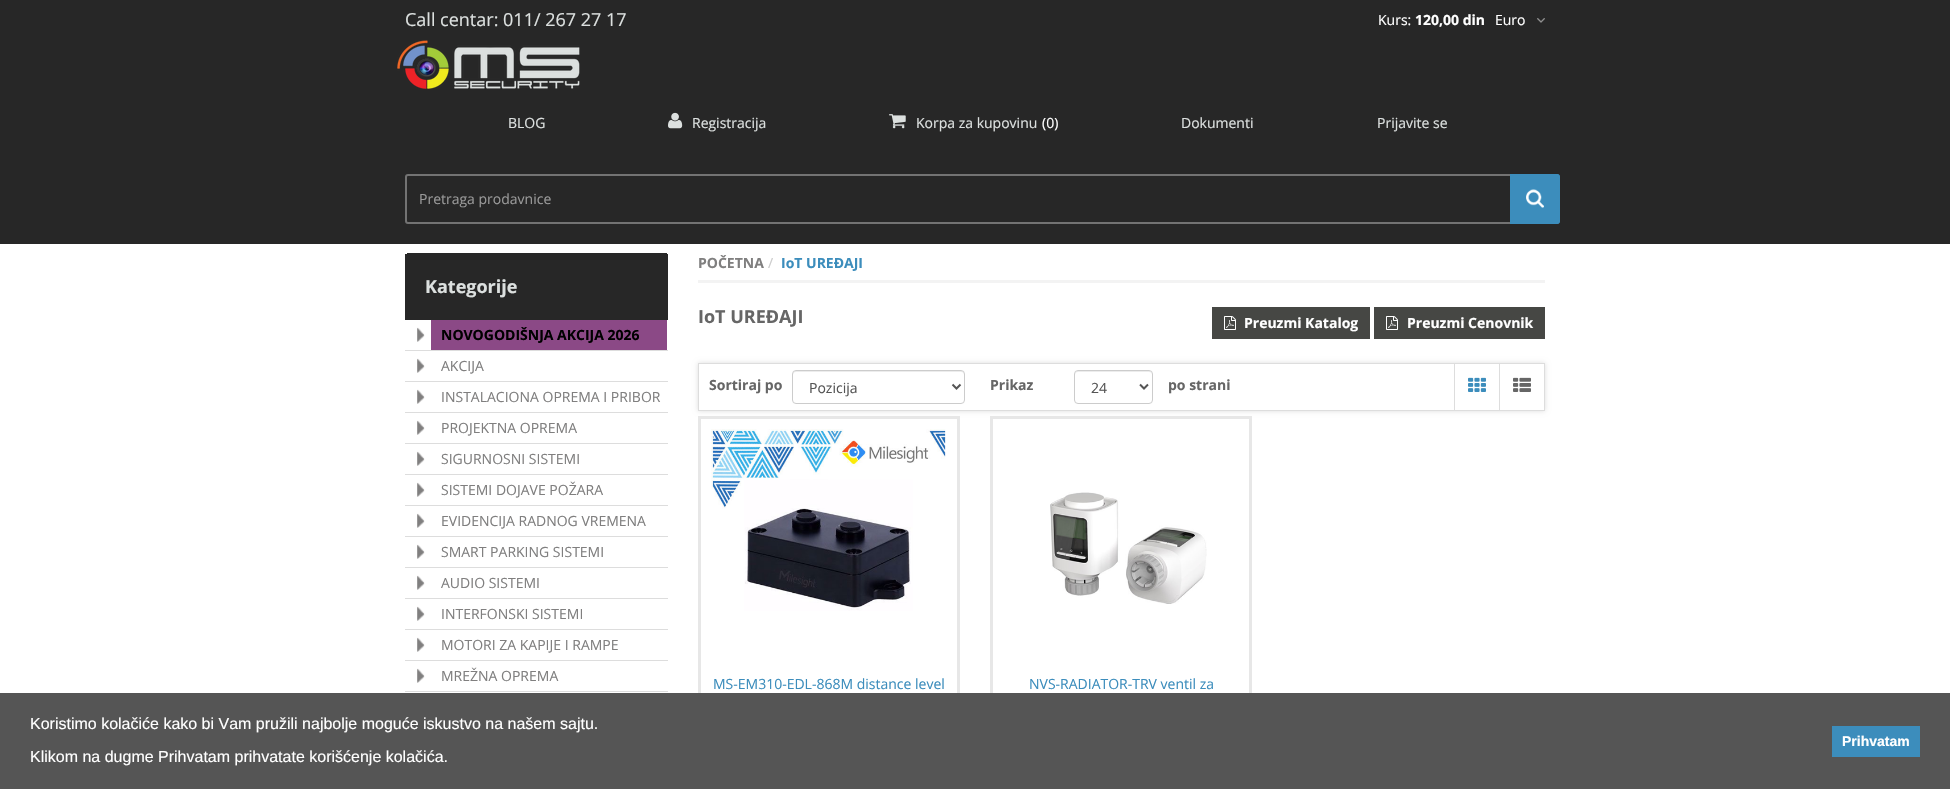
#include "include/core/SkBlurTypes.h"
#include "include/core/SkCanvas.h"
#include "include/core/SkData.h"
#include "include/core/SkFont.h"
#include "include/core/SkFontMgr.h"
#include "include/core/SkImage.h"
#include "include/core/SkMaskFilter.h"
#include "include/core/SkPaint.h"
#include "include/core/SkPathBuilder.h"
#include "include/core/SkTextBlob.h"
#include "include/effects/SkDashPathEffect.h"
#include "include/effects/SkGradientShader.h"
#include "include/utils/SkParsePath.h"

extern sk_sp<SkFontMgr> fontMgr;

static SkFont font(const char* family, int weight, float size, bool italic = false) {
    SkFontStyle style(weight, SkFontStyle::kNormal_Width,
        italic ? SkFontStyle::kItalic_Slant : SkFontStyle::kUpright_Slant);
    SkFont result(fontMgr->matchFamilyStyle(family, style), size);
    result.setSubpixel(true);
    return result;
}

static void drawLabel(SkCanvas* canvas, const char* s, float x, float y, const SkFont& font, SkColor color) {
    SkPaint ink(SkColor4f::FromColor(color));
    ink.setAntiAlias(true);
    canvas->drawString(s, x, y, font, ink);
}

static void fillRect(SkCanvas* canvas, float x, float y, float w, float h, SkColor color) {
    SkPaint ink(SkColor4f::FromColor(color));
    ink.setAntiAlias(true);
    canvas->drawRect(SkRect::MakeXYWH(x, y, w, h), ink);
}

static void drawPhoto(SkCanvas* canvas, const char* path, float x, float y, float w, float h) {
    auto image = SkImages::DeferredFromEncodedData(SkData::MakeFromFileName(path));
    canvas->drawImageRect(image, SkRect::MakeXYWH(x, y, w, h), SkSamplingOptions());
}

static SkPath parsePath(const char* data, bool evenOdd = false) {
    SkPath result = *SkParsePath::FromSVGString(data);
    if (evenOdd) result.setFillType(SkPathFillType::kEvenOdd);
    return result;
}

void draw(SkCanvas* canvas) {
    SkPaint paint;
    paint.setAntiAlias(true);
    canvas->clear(0xFFFFFFFF);
    fillRect(canvas, 0, 0, 1950, 244, 0xFF272727);
    SkFont font1 = font("Open Sans", 400, 18);
    drawLabel(canvas, "Call centar: 011/ 267 27 17", 405, 26, font1, 0xFFDCE0DF);
    SkFont font2 = font("Open Sans", 400, 14);
    drawLabel(canvas, "Kurs:", 1378, 25, font2, 0xFFFFFFFF);
    SkFont font3 = font("Open Sans", 700, 14);
    drawLabel(canvas, "120,00 din", 1415, 25, font3, 0xFFFFFFFF);
    drawPhoto(canvas, "assets/img1.png", 1537, 18, 8, 5);
    drawLabel(canvas, "Euro", 1495, 25, font2, 0xFFFFFFFF);
    drawPhoto(canvas, "assets/img2.png", 397, 40, 183, 49);
    drawLabel(canvas, "BLOG", 508, 128, font2, 0xFFDCE0DF);
    drawPhoto(canvas, "assets/img3.png", 668, 112, 15, 17);
    drawLabel(canvas, "Registracija", 692, 128, font2, 0xFFDCE0DF);
    drawPhoto(canvas, "assets/img4.png", 889, 114, 17, 15);
    drawLabel(canvas, "Korpa za kupovinu", 916, 128, font2, 0xFFDCE0DF);
    drawLabel(canvas, "(0)", 1042, 128, font2, 0xFFFFFFFF);
    drawLabel(canvas, "Dokumenti", 1181, 128, font2, 0xFFDCE0DF);
    drawLabel(canvas, "Prijavite se", 1377, 128, font2, 0xFFDCE0DF);
    paint.setStroke(true);
    paint.setStrokeWidth(2);
    paint.setColor(0xFF737373);
    canvas->drawPath(parsePath("M408 175H1544V223H408C407 223 406 222 406 221V177C406 176 407 175 408 175Z"), paint);
    drawLabel(canvas, "Pretraga prodavnice", 419, 204, font2, 0xFF999999);
    paint.setStroke(false);
    paint.setColor(0xFF3C8DBC);
    canvas->drawPath(parsePath("M1510 174H1557C1558.5 174 1560 175.5 1560 177V221C1560 222.5 1558.5 224 1557 224H1510Z"), paint);
    drawPhoto(canvas, "assets/img5.png", 1526, 189, 18, 19);
    canvas->drawPath(parsePath("M1510 174H1557C1559 174 1560 175 1560 177V221C1560 223 1559 224 1557 224H1510ZM1510 175H1557C1558 175 1559 176 1559 177V221C1559 222 1558 223 1557 223H1510Z", true), paint);
    fillRect(canvas, 407, 253, 260, 1, 0xFF272727);
    fillRect(canvas, 405, 254, 263, 66, 0xFF272727);
    SkFont font4 = font("Open Sans", 700, 18);
    drawLabel(canvas, "Kategorije", 425, 293, font4, 0xFFDCE0DF);
    fillRect(canvas, 405, 350, 263, 1, 0xFFDDDDDD);
    drawPhoto(canvas, "assets/img6.png", 417, 327, 8, 15);
    fillRect(canvas, 431, 320, 236, 30, 0xFF8B4986);
    drawLabel(canvas, "NOVOGODIŠNJA AKCIJA 2026", 441, 340, font3, 0xFF000000);
    fillRect(canvas, 405, 381, 263, 1, 0xFFDDDDDD);
    drawPhoto(canvas, "assets/img6.png", 417, 358, 8, 15);
    drawLabel(canvas, "AKCIJA", 441, 371, font2, 0xFF807F7F);
    fillRect(canvas, 405, 412, 263, 1, 0xFFDDDDDD);
    drawPhoto(canvas, "assets/img6.png", 417, 389, 8, 15);
    drawLabel(canvas, "INSTALACIONA OPREMA I PRIBOR", 441, 402, font2, 0xFF807F7F);
    fillRect(canvas, 405, 443, 263, 1, 0xFFDDDDDD);
    drawPhoto(canvas, "assets/img6.png", 417, 420, 8, 15);
    drawLabel(canvas, "PROJEKTNA OPREMA", 441, 433, font2, 0xFF807F7F);
    fillRect(canvas, 405, 474, 263, 1, 0xFFDDDDDD);
    drawPhoto(canvas, "assets/img6.png", 417, 451, 8, 15);
    drawLabel(canvas, "SIGURNOSNI SISTEMI", 441, 464, font2, 0xFF807F7F);
    fillRect(canvas, 405, 505, 263, 1, 0xFFDDDDDD);
    drawPhoto(canvas, "assets/img6.png", 417, 482, 8, 15);
    drawLabel(canvas, "SISTEMI DOJAVE POŽARA", 441, 495, font2, 0xFF807F7F);
    fillRect(canvas, 405, 536, 263, 1, 0xFFDDDDDD);
    drawPhoto(canvas, "assets/img7.png", 417, 513, 8, 15);
    drawLabel(canvas, "EVIDENCIJA RADNOG VREMENA", 441, 526, font2, 0xFF807F7F);
    fillRect(canvas, 405, 567, 263, 1, 0xFFDDDDDD);
    drawPhoto(canvas, "assets/img6.png", 417, 544, 8, 15);
    drawLabel(canvas, "SMART PARKING SISTEMI", 441, 557, font2, 0xFF807F7F);
    fillRect(canvas, 405, 598, 263, 1, 0xFFDDDDDD);
    drawPhoto(canvas, "assets/img6.png", 417, 575, 8, 15);
    drawLabel(canvas, "AUDIO SISTEMI", 441, 588, font2, 0xFF807F7F);
    fillRect(canvas, 405, 629, 263, 1, 0xFFDDDDDD);
    drawPhoto(canvas, "assets/img6.png", 417, 606, 8, 15);
    drawLabel(canvas, "INTERFONSKI SISTEMI", 441, 619, font2, 0xFF807F7F);
    fillRect(canvas, 405, 660, 263, 1, 0xFFDDDDDD);
    drawPhoto(canvas, "assets/img6.png", 417, 637, 8, 15);
    drawLabel(canvas, "MOTORI ZA KAPIJE I RAMPE", 441, 650, font2, 0xFF807F7F);
    fillRect(canvas, 405, 691, 263, 1, 0xFFDDDDDD);
    drawPhoto(canvas, "assets/img6.png", 417, 668, 8, 15);
    drawLabel(canvas, "MREŽNA OPREMA", 441, 681, font2, 0xFF807F7F);
    fillRect(canvas, 698, 280, 847, 3, 0xFFF3F3F3);
    drawLabel(canvas, "POČETNA", 698, 268, font3, 0xFF807F7F);
    drawLabel(canvas, "/", 768, 268, font2, 0xFFCCCCCC);
    drawLabel(canvas, "IoT UREÐAJI", 781, 268, font3, 0xFF3C8DBC);
    drawLabel(canvas, "IoT UREÐAJI", 698, 323, font4, 0xFF666666);
    fillRect(canvas, 1212, 307, 158, 32, 0xFF464744);
    drawPhoto(canvas, "assets/img8.png", 1224, 316, 12, 14);
    drawLabel(canvas, "Preuzmi Katalog", 1244, 328, font3, 0xFFFFFFFF);
    fillRect(canvas, 1374, 307, 171, 32, 0xFF464744);
    drawPhoto(canvas, "assets/img8.png", 1386, 316, 12, 14);
    drawLabel(canvas, "Preuzmi Cenovnik", 1407, 328, font3, 0xFFFFFFFF);
    canvas->save();
    canvas->clipPath(parsePath("M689 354H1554V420H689ZM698 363H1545V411H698Z", true), true);
    paint.setColor(0xFFDDDDDD);
    paint.setMaskFilter(SkMaskFilter::MakeBlur(kNormal_SkBlurStyle, 2.5f));
    canvas->drawRect(SkRect::MakeXYWH(698, 363, 847, 48), paint);
    paint.setMaskFilter(nullptr);
    canvas->restore();
    paint.setStroke(true);
    paint.setStrokeWidth(1);
    canvas->drawRect(SkRect::MakeXYWH(698.5f, 363.5f, 846, 47), paint);
    drawLabel(canvas, "Sortiraj po", 709, 390, font3, 0xFF666666);
    paint.setStroke(false);
    paint.setColor(0xFFECECEC);
    canvas->drawPath(parsePath("M796 372H961C963 372 964 373 964 375V374C964 372 963 371 961 371H796C794 371 793 372 793 374V375C793 373 794 372 796 372Z"), paint);
    paint.setStroke(true);
    paint.setColor(0xFFCCCCCC);
    canvas->drawRoundRect(SkRect::MakeXYWH(792.5f, 370.5f, 172, 33), 3.5f, 3.5f, paint);
    paint.setStrokeWidth(2);
    paint.setColor(0xFF555555);
    canvas->drawPath(parsePath("M952.5 384.5L956.5 388.5L960.5 384.5"), paint);
    drawLabel(canvas, "Pozicija", 809, 393, font2, 0xFF555555);
    drawLabel(canvas, "Prikaz", 990, 390, font3, 0xFF666666);
    paint.setStroke(false);
    paint.setColor(0xFFECECEC);
    canvas->drawPath(parsePath("M1078 372H1149C1151 372 1152 373 1152 375C1152 368 1141 371 1137 371H1090C1086 371 1075 368 1075 375C1075 373 1076 372 1078 372Z"), paint);
    paint.setStroke(true);
    paint.setStrokeWidth(1);
    paint.setColor(0xFFCCCCCC);
    canvas->drawRoundRect(SkRect::MakeXYWH(1074.5f, 370.5f, 78, 33), 3.5f, 3.5f, paint);
    paint.setStrokeWidth(2);
    paint.setColor(0xFF555555);
    canvas->drawPath(parsePath("M1140 384.5L1144 388.5L1148 384.5"), paint);
    drawLabel(canvas, "24", 1091, 393, font2, 0xFF555555);
    drawLabel(canvas, "po strani", 1168, 390, font3, 0xFF666666);
    fillRect(canvas, 1454, 364, 1, 46, 0xFFDDDDDD);
    drawPhoto(canvas, "assets/img9.png", 1468, 377, 18, 15);
    fillRect(canvas, 1499, 364, 1, 46, 0xFFDDDDDD);
    drawPhoto(canvas, "assets/img10.png", 1513, 377, 18, 15);
    paint.setStrokeWidth(3);
    paint.setColor(0xFFE7E7E7);
    canvas->drawRect(SkRect::MakeXYWH(699.5f, 417.5f, 259, 346), paint);
    drawPhoto(canvas, "assets/img11.png", 711, 429, 235, 182);
    drawLabel(canvas, "MS-EM310-EDL-868M distance level", 713, 689, font2, 0xFF3C8DBC);
    canvas->drawRect(SkRect::MakeXYWH(991.5f, 417.5f, 259, 346), paint);
    drawPhoto(canvas, "assets/img12.png", 1050, 492, 157, 112);
    drawLabel(canvas, "NVS-RADIATOR-TRV ventil za", 1029, 689, font2, 0xFF3C8DBC);
    fillRect(canvas, 0, 693, 1950, 96, 0xFF555555);
    SkFont font5 = font("Liberation Sans", 400, 16);
    drawLabel(canvas, "Koristimo kolačiće kako bi Vam pružili najbolje moguće iskustvo na našem sajtu.", 30, 729, font5, 0xFFFFFFFF);
    drawLabel(canvas, "Klikom na dugme Prihvatam prihvatate korišćenje kolačića.", 30, 762, font5, 0xFFFFFFFF);
    fillRect(canvas, 1832, 726, 88, 31, 0xFF3C8DBC);
    SkFont font6 = font("Liberation Sans", 700, 14);
    drawLabel(canvas, "Prihvatam", 1842, 746, font6, 0xFFFFFFFF);
}
